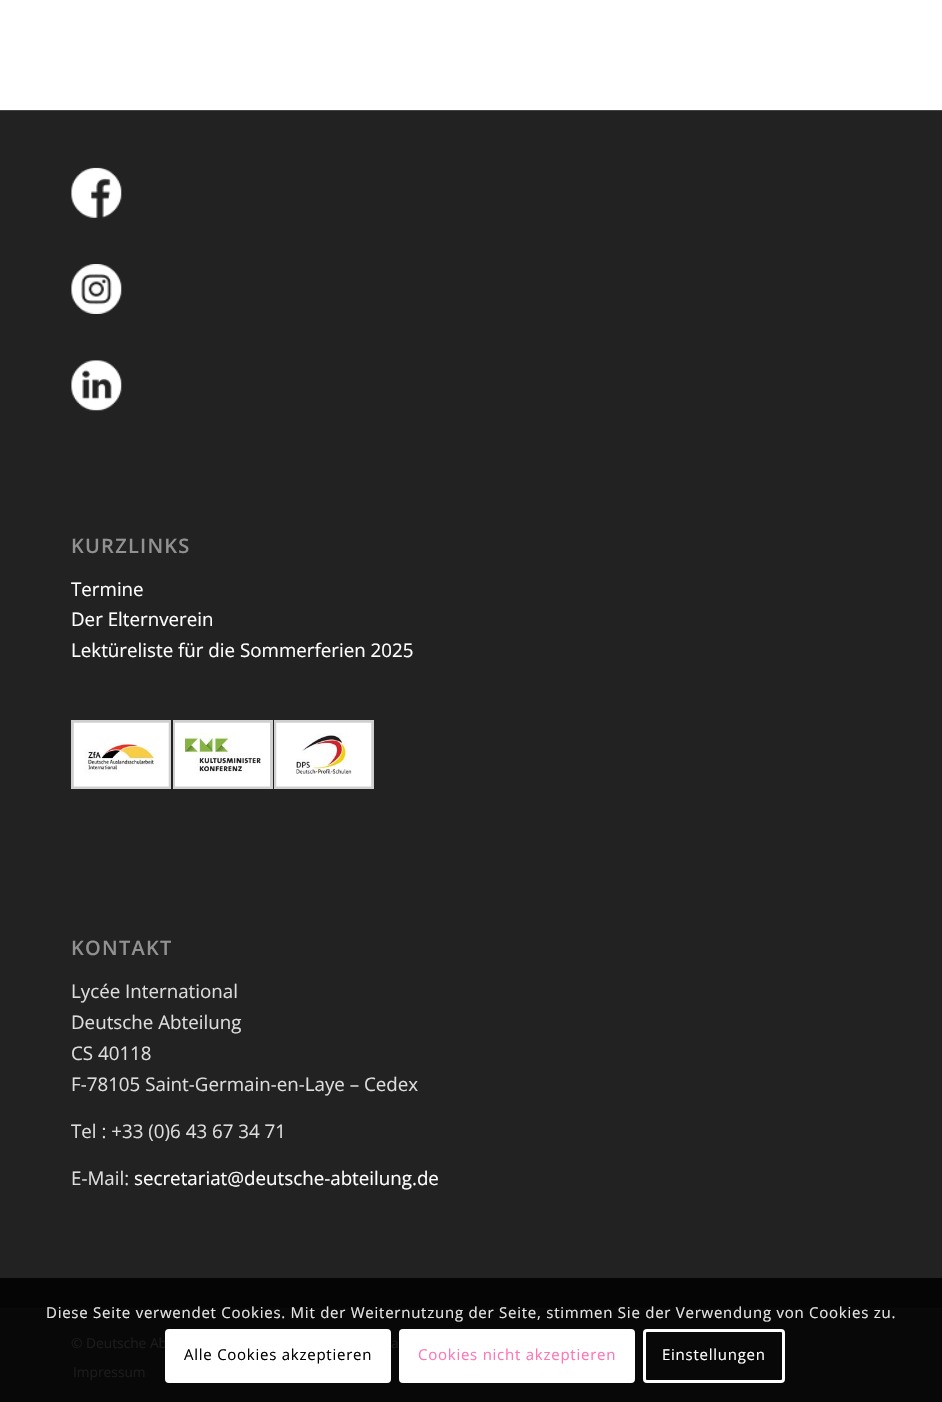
#include "include/core/SkBlurTypes.h"
#include "include/core/SkCanvas.h"
#include "include/core/SkData.h"
#include "include/core/SkFont.h"
#include "include/core/SkFontMgr.h"
#include "include/core/SkImage.h"
#include "include/core/SkMaskFilter.h"
#include "include/core/SkPaint.h"
#include "include/core/SkPathBuilder.h"
#include "include/core/SkTextBlob.h"
#include "include/effects/SkDashPathEffect.h"
#include "include/effects/SkGradientShader.h"
#include "include/utils/SkParsePath.h"

extern sk_sp<SkFontMgr> fontMgr;

static SkFont font(const char* family, int weight, float size, bool italic = false) {
    SkFontStyle style(weight, SkFontStyle::kNormal_Width,
        italic ? SkFontStyle::kItalic_Slant : SkFontStyle::kUpright_Slant);
    SkFont result(fontMgr->matchFamilyStyle(family, style), size);
    result.setSubpixel(true);
    return result;
}

static void drawLabel(SkCanvas* canvas, const char* s, float x, float y, const SkFont& font, SkColor color) {
    SkPaint ink(SkColor4f::FromColor(color));
    ink.setAntiAlias(true);
    canvas->drawString(s, x, y, font, ink);
}

static void drawTracked(SkCanvas* canvas, const char* s, float x, float y, const SkFont& font, const SkPaint& ink, float letter, float word) {
    std::vector<SkGlyphID> glyphs(font.countText(s, strlen(s), SkTextEncoding::kUTF8));
    std::vector<float> xs(glyphs.size());
    font.textToGlyphs(s, strlen(s), SkTextEncoding::kUTF8, glyphs);
    font.getXPos(glyphs, xs, x);
    float extra = 0;
    for (size_t i = 0; i < glyphs.size(); i++) {
        xs[i] += extra;
        extra += letter + word * (glyphs[i] == font.unicharToGlyph(' '));
    }
    canvas->drawTextBlob(SkTextBlob::MakeFromPosHGlyphs(glyphs, xs, y, font), 0, 0, ink);
}

static void fillRect(SkCanvas* canvas, float x, float y, float w, float h, SkColor color) {
    SkPaint ink(SkColor4f::FromColor(color));
    ink.setAntiAlias(true);
    canvas->drawRect(SkRect::MakeXYWH(x, y, w, h), ink);
}

static void fillRRect(SkCanvas* canvas, float x, float y, float w, float h, float radius, SkColor color) {
    SkPaint ink(SkColor4f::FromColor(color));
    ink.setAntiAlias(true);
    canvas->drawRoundRect(SkRect::MakeXYWH(x, y, w, h), radius, radius, ink);
}

static void drawPhoto(SkCanvas* canvas, const char* path, float x, float y, float w, float h) {
    auto image = SkImages::DeferredFromEncodedData(SkData::MakeFromFileName(path));
    canvas->drawImageRect(image, SkRect::MakeXYWH(x, y, w, h), SkSamplingOptions());
}

void draw(SkCanvas* canvas) {
    SkPaint paint;
    paint.setAntiAlias(true);
    canvas->clear(0xFFFFFFFF);
    fillRect(canvas, 0, 111, 942, 1167, 0xFF222222);
    fillRect(canvas, 0, 1278, 942, 30, 0xFF050505);
    fillRect(canvas, 0, 110, 942, 1, 0xFF444444);
    drawPhoto(canvas, "assets/img1.png", 71, 167, 51, 51);
    drawPhoto(canvas, "assets/img2.png", 71, 264, 51, 50);
    drawPhoto(canvas, "assets/img3.png", 71, 360, 51, 51);
    SkFont font1 = font("Open Sans", 600, 20);
    paint.setColor(0xFF919191);
    drawTracked(canvas, "KURZLINKS", 71, 553, font1, paint, 1.25f, 0);
    SkFont font2 = font("Open Sans", 400, 18.75f);
    drawLabel(canvas, "Termine", 71, 596, font2, 0xFFFFFFFF);
    drawLabel(canvas, "Der Elternverein", 71, 626, font2, 0xFFFFFFFF);
    drawLabel(canvas, "Lektüreliste für die Sommerferien 2025", 71, 657, font2, 0xFFFFFFFF);
    paint.setStroke(true);
    paint.setStrokeWidth(3);
    paint.setColor(0xFFCFCFCF);
    canvas->drawRect(SkRect::MakeXYWH(72.5f, 721.5f, 97, 66), paint);
    drawPhoto(canvas, "assets/img4.png", 73, 722, 96, 65);
    canvas->drawRect(SkRect::MakeXYWH(174.5f, 721.5f, 97, 66), paint);
    drawPhoto(canvas, "assets/img5.png", 175, 722, 95, 65);
    canvas->drawRect(SkRect::MakeXYWH(275.5f, 721.5f, 97, 66), paint);
    drawPhoto(canvas, "assets/img6.png", 276, 722, 96, 65);
    paint.setStroke(false);
    paint.setColor(0xFF919191);
    drawTracked(canvas, "KONTAKT", 71, 955, font1, paint, 1.25f, 0);
    drawLabel(canvas, "Lycée International", 71, 998, font2, 0xFFDDDDDD);
    drawLabel(canvas, "Deutsche Abteilung", 71, 1029, font2, 0xFFDDDDDD);
    drawLabel(canvas, "CS 40118", 71, 1060, font2, 0xFFDDDDDD);
    drawLabel(canvas, "F-78105 Saint-Germain-en-Laye – Cedex", 71, 1091, font2, 0xFFDDDDDD);
    drawLabel(canvas, "Tel : +33 (0)6 43 67 34 71", 71, 1138, font2, 0xFFDDDDDD);
    drawLabel(canvas, "E-Mail:", 71, 1185, font2, 0xFFDDDDDD);
    drawLabel(canvas, "secretariat@deutsche-abteilung.de", 134, 1185, font2, 0xFFFFFFFF);
    fillRect(canvas, 0, 1309, 942, 93, 0xFF080808);
    fillRect(canvas, 0, 1308, 942, 1, 0xFF0A0A0A);
    SkFont font3 = font("Open Sans", 400, 13.75f);
    drawLabel(canvas, "© Deutsche Ab", 71, 1348, font3, 0xFF1B1B1B);
    drawLabel(canvas, "a", 391, 1348, font3, 0xFF1B1B1B);
    drawLabel(canvas, "Impressum", 73, 1377, font3, 0xFF1B1B1B);
    SkFont font4 = font("Open Sans", 400, 15);
    paint.setColor(0xFFE6E6E6);
    drawTracked(canvas, "Diese Seite verwendet Cookies. Mit der Weiternutzung der Seite, stimmen Sie der Verwendung von Cookies zu.", 46, 1318, font4, paint, 0.75f, 0);
    fillRRect(canvas, 165, 1329, 226, 54, 4, 0xFFFFFFFF);
    paint.setColor(0xFF000000);
    drawTracked(canvas, "Alle Cookies akzeptieren", 184, 1360, font4, paint, 0.75f, 0);
    paint.setColor(0xFFFFFFFF);
    canvas->drawRoundRect(SkRect::MakeXYWH(400.5f, 1330.5f, 233, 51), 2.5f, 2.5f, paint);
    paint.setStroke(true);
    canvas->drawRoundRect(SkRect::MakeXYWH(400.5f, 1330.5f, 233, 51), 2.5f, 2.5f, paint);
    paint.setStroke(false);
    paint.setColor(0xFFFF75B5);
    drawTracked(canvas, "Cookies nicht akzeptieren", 418, 1360, font4, paint, 0.75f, 0);
    paint.setStroke(true);
    paint.setColor(0xFFFFFFFF);
    canvas->drawRoundRect(SkRect::MakeXYWH(644.5f, 1330.5f, 139, 51), 2.5f, 2.5f, paint);
    paint.setStroke(false);
    drawTracked(canvas, "Einstellungen", 662, 1360, font4, paint, 0.75f, 0);
}
